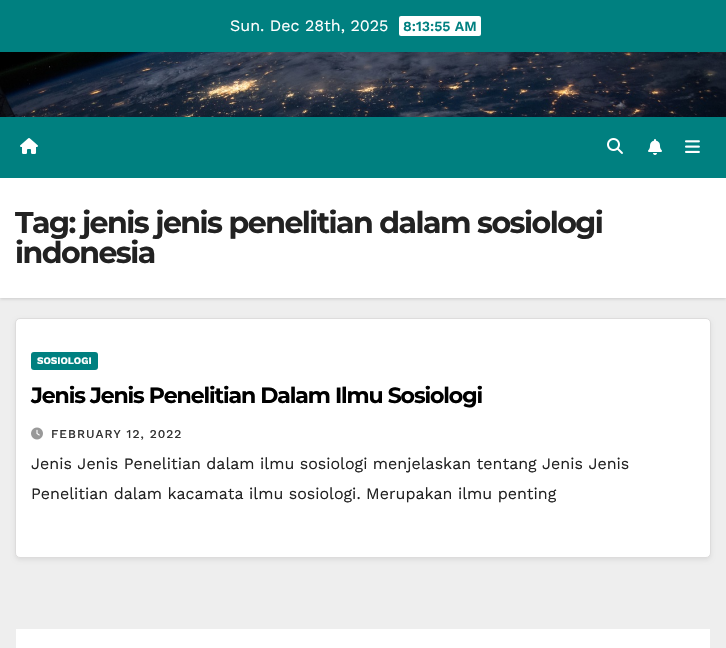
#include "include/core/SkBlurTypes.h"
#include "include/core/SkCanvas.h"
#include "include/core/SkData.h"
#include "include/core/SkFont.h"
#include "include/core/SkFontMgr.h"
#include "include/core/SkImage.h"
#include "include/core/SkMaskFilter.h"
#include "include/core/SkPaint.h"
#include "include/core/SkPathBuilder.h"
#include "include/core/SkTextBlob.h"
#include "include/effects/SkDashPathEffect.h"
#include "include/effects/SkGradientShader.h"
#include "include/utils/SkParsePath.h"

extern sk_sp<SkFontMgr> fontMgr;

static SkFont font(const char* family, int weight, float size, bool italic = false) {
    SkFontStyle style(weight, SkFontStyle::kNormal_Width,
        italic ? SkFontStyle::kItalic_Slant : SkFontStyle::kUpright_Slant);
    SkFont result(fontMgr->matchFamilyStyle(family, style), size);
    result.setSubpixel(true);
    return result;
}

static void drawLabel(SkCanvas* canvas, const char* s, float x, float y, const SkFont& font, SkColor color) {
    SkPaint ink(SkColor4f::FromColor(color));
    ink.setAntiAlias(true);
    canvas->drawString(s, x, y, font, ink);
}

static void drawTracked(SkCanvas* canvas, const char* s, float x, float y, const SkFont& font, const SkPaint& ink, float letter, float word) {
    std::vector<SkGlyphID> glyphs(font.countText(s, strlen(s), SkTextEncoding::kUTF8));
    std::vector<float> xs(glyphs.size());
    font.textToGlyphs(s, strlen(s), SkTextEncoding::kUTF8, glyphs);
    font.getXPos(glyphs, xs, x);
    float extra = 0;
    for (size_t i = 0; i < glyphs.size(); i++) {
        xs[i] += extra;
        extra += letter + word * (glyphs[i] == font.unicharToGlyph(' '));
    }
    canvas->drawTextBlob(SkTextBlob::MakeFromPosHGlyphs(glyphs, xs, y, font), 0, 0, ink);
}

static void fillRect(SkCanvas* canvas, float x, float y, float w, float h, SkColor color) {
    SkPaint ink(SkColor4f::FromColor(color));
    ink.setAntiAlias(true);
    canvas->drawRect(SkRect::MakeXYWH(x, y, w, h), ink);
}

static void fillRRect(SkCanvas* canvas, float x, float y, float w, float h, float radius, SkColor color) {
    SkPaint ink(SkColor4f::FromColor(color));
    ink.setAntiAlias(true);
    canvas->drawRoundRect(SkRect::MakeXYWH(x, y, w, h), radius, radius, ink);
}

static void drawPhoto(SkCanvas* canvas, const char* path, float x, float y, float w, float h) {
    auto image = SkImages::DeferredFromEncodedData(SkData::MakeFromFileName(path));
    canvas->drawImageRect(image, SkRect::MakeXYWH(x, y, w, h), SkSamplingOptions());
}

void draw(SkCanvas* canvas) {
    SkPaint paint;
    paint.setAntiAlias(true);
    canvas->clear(0xFFEEEEEE);
    fillRect(canvas, 0, 0, 726, 52, 0xFF008080);
    SkFont font1 = font("Work Sans", 400, 16);
    drawLabel(canvas, "Sun. Dec 28th, 2025", 230, 31, font1, 0xFFFFFFFF);
    fillRRect(canvas, 399, 16, 82, 20, 2, 0xFFFFFFFF);
    SkFont font2 = font("Work Sans", 600, 14);
    drawLabel(canvas, "8:13:55 AM", 403, 31, font2, 0xFF008080);
    drawPhoto(canvas, "assets/img1.png", 0, 52, 726, 65);
    paint.setColor(0x26000000);
    paint.setMaskFilter(SkMaskFilter::MakeBlur(kNormal_SkBlurStyle, 1.5f));
    canvas->drawRect(SkRect::MakeXYWH(0, 179, 726, 120), paint);
    paint.setMaskFilter(nullptr);
    fillRect(canvas, 0, 117, 726, 61, 0xFF008080);
    drawPhoto(canvas, "assets/img2.png", 20, 138, 18, 16);
    drawPhoto(canvas, "assets/img3.png", 607, 138, 16, 16);
    drawPhoto(canvas, "assets/img4.png", 648, 139, 14, 16);
    drawPhoto(canvas, "assets/img5.png", 685, 140, 15, 13);
    fillRect(canvas, 0, 178, 726, 120, 0xFFFFFFFF);
    SkFont font3 = font("Montserrat", 700, 30);
    paint.setColor(0xFF222222);
    drawTracked(canvas, "Tag: jenis jenis penelitian dalam sosiologi", 15, 233, font3, paint, -1.5f, 0);
    drawTracked(canvas, "indonesia", 15, 263, font3, paint, -1.5f, 0);
    paint.setColor(0x14000000);
    paint.setMaskFilter(SkMaskFilter::MakeBlur(kNormal_SkBlurStyle, 2));
    canvas->drawRoundRect(SkRect::MakeXYWH(15, 320, 696, 240), 5, 5, paint);
    paint.setMaskFilter(nullptr);
    paint.setColor(0xFFFFFFFF);
    canvas->drawRoundRect(SkRect::MakeXYWH(15.5f, 318.5f, 695, 239), 4.5f, 4.5f, paint);
    paint.setStroke(true);
    paint.setStrokeWidth(1);
    paint.setColor(0xFFDDDCDC);
    canvas->drawRoundRect(SkRect::MakeXYWH(15.5f, 318.5f, 695, 239), 4.5f, 4.5f, paint);
    fillRRect(canvas, 31, 352, 67, 18, 3, 0xFF008080);
    SkFont font4 = font("Work Sans", 700, 10);
    drawLabel(canvas, "SOSIOLOGI", 37, 364, font4, 0xFFFFFFFF);
    SkFont font5 = font("Montserrat", 700, 22);
    paint.setStroke(false);
    paint.setColor(0xFF000000);
    drawTracked(canvas, "Jenis Jenis Penelitian Dalam Ilmu Sosiologi", 31, 403, font5, paint, -1.1f, 0);
    drawPhoto(canvas, "assets/img6.png", 31, 427, 12, 13);
    SkFont font6 = font("Work Sans", 500, 12);
    paint.setColor(0xFF333333);
    drawTracked(canvas, "FEBRUARY 12, 2022", 51, 438, font6, paint, 1, 0);
    drawLabel(canvas, "Jenis Jenis Penelitian dalam ilmu sosiologi menjelaskan tentang Jenis Jenis", 31, 469, font1, 0xFF222222);
    drawLabel(canvas, "Penelitian dalam kacamata ilmu sosiologi. Merupakan ilmu penting", 31, 499, font1, 0xFF222222);
    fillRect(canvas, 16, 629, 694, 19, 0xFFFFFFFF);
}
